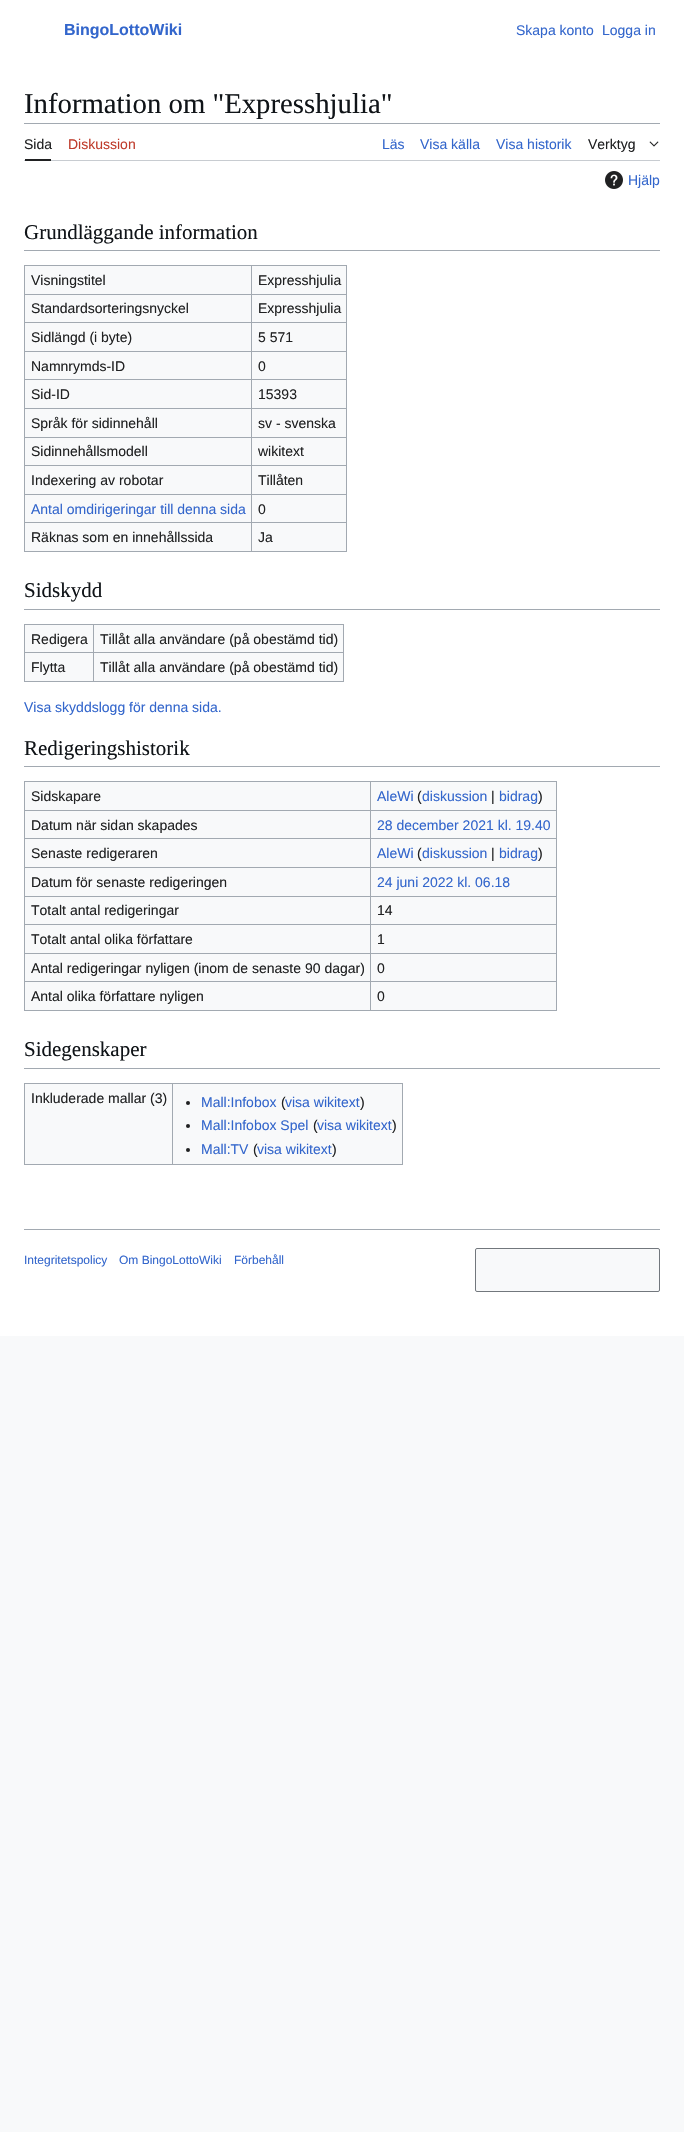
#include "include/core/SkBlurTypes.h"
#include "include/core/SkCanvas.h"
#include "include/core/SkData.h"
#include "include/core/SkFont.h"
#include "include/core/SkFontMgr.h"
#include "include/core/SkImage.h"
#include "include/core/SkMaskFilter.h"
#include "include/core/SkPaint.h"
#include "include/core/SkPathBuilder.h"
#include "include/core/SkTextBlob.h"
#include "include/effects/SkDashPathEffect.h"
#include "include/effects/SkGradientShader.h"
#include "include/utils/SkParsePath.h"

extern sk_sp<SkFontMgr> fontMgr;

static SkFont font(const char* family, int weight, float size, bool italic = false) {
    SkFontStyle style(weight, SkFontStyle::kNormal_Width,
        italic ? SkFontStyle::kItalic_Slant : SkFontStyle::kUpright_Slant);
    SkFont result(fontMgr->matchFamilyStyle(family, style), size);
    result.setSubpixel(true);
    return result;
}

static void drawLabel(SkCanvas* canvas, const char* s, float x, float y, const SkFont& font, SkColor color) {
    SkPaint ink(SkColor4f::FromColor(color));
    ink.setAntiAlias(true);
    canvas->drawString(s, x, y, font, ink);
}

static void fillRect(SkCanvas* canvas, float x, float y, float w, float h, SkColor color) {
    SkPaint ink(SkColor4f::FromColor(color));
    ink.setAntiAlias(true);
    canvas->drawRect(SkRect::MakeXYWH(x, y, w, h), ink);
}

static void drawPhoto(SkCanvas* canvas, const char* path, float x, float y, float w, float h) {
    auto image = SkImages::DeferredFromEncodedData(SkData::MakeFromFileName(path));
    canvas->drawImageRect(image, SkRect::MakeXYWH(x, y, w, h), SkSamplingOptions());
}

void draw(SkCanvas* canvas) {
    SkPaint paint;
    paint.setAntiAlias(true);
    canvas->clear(0xFFF8F9FA);
    fillRect(canvas, 0, 0, 684, 1336, 0xFFFFFFFF);
    SkFont font1 = font("Liberation Sans", 700, 16);
    drawLabel(canvas, "BingoLottoWiki", 64, 35, font1, 0xFF3366CC);
    SkFont font2 = font("Liberation Sans", 400, 14);
    drawLabel(canvas, "Skapa konto", 516, 35, font2, 0xFF3366CC);
    drawLabel(canvas, "Logga in", 602, 35, font2, 0xFF3366CC);
    SkFont font3 = font("Liberation Serif", 400, 28.75f);
    drawLabel(canvas, "Information om \"Expresshjulia\"", 24, 113, font3, 0xFF101418);
    fillRect(canvas, 24, 123, 636, 1, 0xFFA2A9B1);
    fillRect(canvas, 24, 160, 636, 1, 0xFFC8CCD1);
    fillRect(canvas, 25, 159, 26, 2, 0xFF202122);
    drawLabel(canvas, "Sida", 24, 149, font2, 0xFF202122);
    drawLabel(canvas, "Diskussion", 68, 149, font2, 0xFFBF3C2C);
    drawLabel(canvas, "Läs", 382, 149, font2, 0xFF3366CC);
    drawLabel(canvas, "Visa källa", 420, 149, font2, 0xFF3366CC);
    drawLabel(canvas, "Visa historik", 496, 149, font2, 0xFF3366CC);
    drawLabel(canvas, "Verktyg", 588, 149, font2, 0xFF202122);
    drawPhoto(canvas, "assets/img1.png", 649, 141, 10, 6);
    drawPhoto(canvas, "assets/img2.png", 605, 171, 18, 18);
    drawLabel(canvas, "Hjälp", 628, 185, font2, 0xFF3366CC);
    fillRect(canvas, 24, 250, 636, 1, 0xFFA2A9B1);
    SkFont font4 = font("Liberation Serif", 400, 21);
    drawLabel(canvas, "Grundläggande information", 24, 239, font4, 0xFF101418);
    fillRect(canvas, 25, 266, 321, 285, 0xFFF8F9FA);
    fillRect(canvas, 24, 265, 323, 1, 0xFFA2A9B1);
    fillRect(canvas, 346, 265, 1, 287, 0xFFA2A9B1);
    fillRect(canvas, 24, 551, 323, 1, 0xFFA2A9B1);
    fillRect(canvas, 24, 265, 1, 287, 0xFFA2A9B1);
    drawLabel(canvas, "Visningstitel", 31, 285, font2, 0xFF202122);
    fillRect(canvas, 251, 294, 96, 1, 0xFFA2A9B1);
    fillRect(canvas, 251, 322, 96, 1, 0xFFA2A9B1);
    fillRect(canvas, 251, 351, 96, 1, 0xFFA2A9B1);
    fillRect(canvas, 251, 379, 96, 1, 0xFFA2A9B1);
    fillRect(canvas, 251, 408, 96, 1, 0xFFA2A9B1);
    fillRect(canvas, 251, 437, 96, 1, 0xFFA2A9B1);
    fillRect(canvas, 251, 465, 96, 1, 0xFFA2A9B1);
    fillRect(canvas, 251, 494, 96, 1, 0xFFA2A9B1);
    fillRect(canvas, 251, 522, 96, 1, 0xFFA2A9B1);
    fillRect(canvas, 251, 522, 1, 30, 0xFFA2A9B1);
    fillRect(canvas, 24, 522, 228, 1, 0xFFA2A9B1);
    fillRect(canvas, 251, 494, 1, 29, 0xFFA2A9B1);
    fillRect(canvas, 24, 494, 228, 1, 0xFFA2A9B1);
    fillRect(canvas, 251, 465, 1, 30, 0xFFA2A9B1);
    fillRect(canvas, 24, 465, 228, 1, 0xFFA2A9B1);
    fillRect(canvas, 251, 437, 1, 29, 0xFFA2A9B1);
    fillRect(canvas, 24, 437, 228, 1, 0xFFA2A9B1);
    fillRect(canvas, 251, 408, 1, 30, 0xFFA2A9B1);
    fillRect(canvas, 24, 408, 228, 1, 0xFFA2A9B1);
    fillRect(canvas, 251, 379, 1, 30, 0xFFA2A9B1);
    fillRect(canvas, 24, 379, 228, 1, 0xFFA2A9B1);
    fillRect(canvas, 251, 351, 1, 29, 0xFFA2A9B1);
    fillRect(canvas, 24, 351, 228, 1, 0xFFA2A9B1);
    fillRect(canvas, 251, 322, 1, 30, 0xFFA2A9B1);
    fillRect(canvas, 24, 322, 228, 1, 0xFFA2A9B1);
    fillRect(canvas, 251, 294, 1, 29, 0xFFA2A9B1);
    fillRect(canvas, 24, 294, 228, 1, 0xFFA2A9B1);
    fillRect(canvas, 251, 265, 1, 30, 0xFFA2A9B1);
    drawLabel(canvas, "Expresshjulia", 258, 285, font2, 0xFF202122);
    drawLabel(canvas, "Standardsorteringsnyckel", 31, 313, font2, 0xFF202122);
    drawLabel(canvas, "Expresshjulia", 258, 313, font2, 0xFF202122);
    drawLabel(canvas, "Sidlängd (i byte)", 31, 342, font2, 0xFF202122);
    drawLabel(canvas, "5 571", 258, 342, font2, 0xFF202122);
    drawLabel(canvas, "Namnrymds-ID", 31, 371, font2, 0xFF202122);
    drawLabel(canvas, "0", 258, 371, font2, 0xFF202122);
    drawLabel(canvas, "Sid-ID", 31, 399, font2, 0xFF202122);
    drawLabel(canvas, "15393", 258, 399, font2, 0xFF202122);
    drawLabel(canvas, "Språk för sidinnehåll", 31, 428, font2, 0xFF202122);
    drawLabel(canvas, "sv - svenska", 258, 428, font2, 0xFF202122);
    drawLabel(canvas, "Sidinnehållsmodell", 31, 456, font2, 0xFF202122);
    drawLabel(canvas, "wikitext", 258, 456, font2, 0xFF202122);
    drawLabel(canvas, "Indexering av robotar", 31, 485, font2, 0xFF202122);
    drawLabel(canvas, "Tillåten", 258, 485, font2, 0xFF202122);
    drawLabel(canvas, "Antal omdirigeringar till denna sida", 31, 514, font2, 0xFF3366CC);
    drawLabel(canvas, "0", 258, 514, font2, 0xFF202122);
    drawLabel(canvas, "Räknas som en innehållssida", 31, 542, font2, 0xFF202122);
    drawLabel(canvas, "Ja", 258, 542, font2, 0xFF202122);
    fillRect(canvas, 24, 609, 636, 1, 0xFFA2A9B1);
    drawLabel(canvas, "Sidskydd", 24, 597, font4, 0xFF101418);
    fillRect(canvas, 25, 625, 318, 56, 0xFFF8F9FA);
    fillRect(canvas, 24, 624, 320, 1, 0xFFA2A9B1);
    fillRect(canvas, 343, 624, 1, 58, 0xFFA2A9B1);
    fillRect(canvas, 24, 681, 320, 1, 0xFFA2A9B1);
    fillRect(canvas, 24, 624, 1, 58, 0xFFA2A9B1);
    drawLabel(canvas, "Redigera", 31, 644, font2, 0xFF202122);
    fillRect(canvas, 93, 652, 251, 1, 0xFFA2A9B1);
    fillRect(canvas, 93, 652, 1, 30, 0xFFA2A9B1);
    fillRect(canvas, 24, 652, 70, 1, 0xFFA2A9B1);
    fillRect(canvas, 93, 624, 1, 29, 0xFFA2A9B1);
    drawLabel(canvas, "Tillåt alla användare (på obestämd tid)", 100, 644, font2, 0xFF202122);
    drawLabel(canvas, "Flytta", 31, 672, font2, 0xFF202122);
    drawLabel(canvas, "Tillåt alla användare (på obestämd tid)", 100, 672, font2, 0xFF202122);
    drawLabel(canvas, "Visa skyddslogg för denna sida.", 24, 712, font2, 0xFF3366CC);
    fillRect(canvas, 24, 766, 636, 1, 0xFFA2A9B1);
    drawLabel(canvas, "Redigeringshistorik", 24, 755, font4, 0xFF101418);
    fillRect(canvas, 25, 782, 531, 228, 0xFFF8F9FA);
    fillRect(canvas, 24, 781, 533, 1, 0xFFA2A9B1);
    fillRect(canvas, 556, 781, 1, 230, 0xFFA2A9B1);
    fillRect(canvas, 24, 1010, 533, 1, 0xFFA2A9B1);
    fillRect(canvas, 24, 781, 1, 230, 0xFFA2A9B1);
    drawLabel(canvas, "Sidskapare", 31, 801, font2, 0xFF202122);
    fillRect(canvas, 370, 810, 187, 1, 0xFFA2A9B1);
    fillRect(canvas, 370, 838, 187, 1, 0xFFA2A9B1);
    fillRect(canvas, 370, 867, 187, 1, 0xFFA2A9B1);
    fillRect(canvas, 370, 896, 187, 1, 0xFFA2A9B1);
    fillRect(canvas, 370, 924, 187, 1, 0xFFA2A9B1);
    fillRect(canvas, 370, 953, 187, 1, 0xFFA2A9B1);
    fillRect(canvas, 370, 981, 187, 1, 0xFFA2A9B1);
    fillRect(canvas, 370, 981, 1, 30, 0xFFA2A9B1);
    fillRect(canvas, 24, 981, 347, 1, 0xFFA2A9B1);
    fillRect(canvas, 370, 953, 1, 29, 0xFFA2A9B1);
    fillRect(canvas, 24, 953, 347, 1, 0xFFA2A9B1);
    fillRect(canvas, 370, 924, 1, 30, 0xFFA2A9B1);
    fillRect(canvas, 24, 924, 347, 1, 0xFFA2A9B1);
    fillRect(canvas, 370, 896, 1, 29, 0xFFA2A9B1);
    fillRect(canvas, 24, 896, 347, 1, 0xFFA2A9B1);
    fillRect(canvas, 370, 867, 1, 30, 0xFFA2A9B1);
    fillRect(canvas, 24, 867, 347, 1, 0xFFA2A9B1);
    fillRect(canvas, 370, 838, 1, 30, 0xFFA2A9B1);
    fillRect(canvas, 24, 838, 347, 1, 0xFFA2A9B1);
    fillRect(canvas, 370, 810, 1, 29, 0xFFA2A9B1);
    fillRect(canvas, 24, 810, 347, 1, 0xFFA2A9B1);
    fillRect(canvas, 370, 781, 1, 30, 0xFFA2A9B1);
    drawLabel(canvas, "AleWi", 377, 801, font2, 0xFF3366CC);
    drawLabel(canvas, "(", 417, 801, font2, 0xFF202122);
    drawLabel(canvas, "diskussion", 422, 801, font2, 0xFF3366CC);
    drawLabel(canvas, "|", 491, 801, font2, 0xFF202122);
    drawLabel(canvas, "bidrag", 499, 801, font2, 0xFF3366CC);
    drawLabel(canvas, ")", 538, 801, font2, 0xFF202122);
    drawLabel(canvas, "Datum när sidan skapades", 31, 830, font2, 0xFF202122);
    drawLabel(canvas, "28 december 2021 kl. 19.40", 377, 830, font2, 0xFF3366CC);
    drawLabel(canvas, "Senaste redigeraren", 31, 858, font2, 0xFF202122);
    drawLabel(canvas, "AleWi", 377, 858, font2, 0xFF3366CC);
    drawLabel(canvas, "(", 417, 858, font2, 0xFF202122);
    drawLabel(canvas, "diskussion", 422, 858, font2, 0xFF3366CC);
    drawLabel(canvas, "|", 491, 858, font2, 0xFF202122);
    drawLabel(canvas, "bidrag", 499, 858, font2, 0xFF3366CC);
    drawLabel(canvas, ")", 538, 858, font2, 0xFF202122);
    drawLabel(canvas, "Datum för senaste redigeringen", 31, 887, font2, 0xFF202122);
    drawLabel(canvas, "24 juni 2022 kl. 06.18", 377, 887, font2, 0xFF3366CC);
    drawLabel(canvas, "Totalt antal redigeringar", 31, 915, font2, 0xFF202122);
    drawLabel(canvas, "14", 377, 915, font2, 0xFF202122);
    drawLabel(canvas, "Totalt antal olika författare", 31, 944, font2, 0xFF202122);
    drawLabel(canvas, "1", 377, 944, font2, 0xFF202122);
    drawLabel(canvas, "Antal redigeringar nyligen (inom de senaste 90 dagar)", 31, 973, font2, 0xFF202122);
    drawLabel(canvas, "0", 377, 973, font2, 0xFF202122);
    drawLabel(canvas, "Antal olika författare nyligen", 31, 1001, font2, 0xFF202122);
    drawLabel(canvas, "0", 377, 1001, font2, 0xFF202122);
    fillRect(canvas, 24, 1068, 636, 1, 0xFFA2A9B1);
    drawLabel(canvas, "Sidegenskaper", 24, 1056, font4, 0xFF101418);
    fillRect(canvas, 25, 1084, 377, 80, 0xFFF8F9FA);
    fillRect(canvas, 24, 1083, 379, 1, 0xFFA2A9B1);
    fillRect(canvas, 402, 1083, 1, 82, 0xFFA2A9B1);
    fillRect(canvas, 24, 1164, 379, 1, 0xFFA2A9B1);
    fillRect(canvas, 24, 1083, 1, 82, 0xFFA2A9B1);
    drawLabel(canvas, "Inkluderade mallar (3)", 31, 1103, font2, 0xFF202122);
    fillRect(canvas, 172, 1083, 1, 82, 0xFFA2A9B1);
    paint.setColor(0xFF202122);
    canvas->drawCircle(188, 1103, 2, paint);
    drawLabel(canvas, "Mall:Infobox", 201, 1107, font2, 0xFF3366CC);
    drawLabel(canvas, "(", 281, 1107, font2, 0xFF202122);
    drawLabel(canvas, "visa wikitext", 285, 1107, font2, 0xFF3366CC);
    drawLabel(canvas, ")", 360, 1107, font2, 0xFF202122);
    canvas->drawCircle(188, 1126, 2, paint);
    drawLabel(canvas, "Mall:Infobox Spel", 201, 1130, font2, 0xFF3366CC);
    drawLabel(canvas, "(", 313, 1130, font2, 0xFF202122);
    drawLabel(canvas, "visa wikitext", 317, 1130, font2, 0xFF3366CC);
    drawLabel(canvas, ")", 392, 1130, font2, 0xFF202122);
    canvas->drawCircle(188, 1150, 2, paint);
    drawLabel(canvas, "Mall:TV", 201, 1154, font2, 0xFF3366CC);
    drawLabel(canvas, "(", 253, 1154, font2, 0xFF202122);
    drawLabel(canvas, "visa wikitext", 257, 1154, font2, 0xFF3366CC);
    drawLabel(canvas, ")", 332, 1154, font2, 0xFF202122);
    fillRect(canvas, 24, 1229, 636, 1, 0xFFA2A9B1);
    SkFont font5 = font("Liberation Sans", 400, 12);
    drawLabel(canvas, "Integritetspolicy", 24, 1264, font5, 0xFF3366CC);
    drawLabel(canvas, "Om BingoLottoWiki", 119, 1264, font5, 0xFF3366CC);
    drawLabel(canvas, "Förbehåll", 234, 1264, font5, 0xFF3366CC);
    paint.setColor(0xFFF8F9FA);
    canvas->drawRoundRect(SkRect::MakeXYWH(475.5f, 1248.5f, 184, 43), 1.5f, 1.5f, paint);
    paint.setStroke(true);
    paint.setStrokeWidth(1);
    paint.setColor(0xFF72777D);
    canvas->drawRoundRect(SkRect::MakeXYWH(475.5f, 1248.5f, 184, 43), 1.5f, 1.5f, paint);
}
